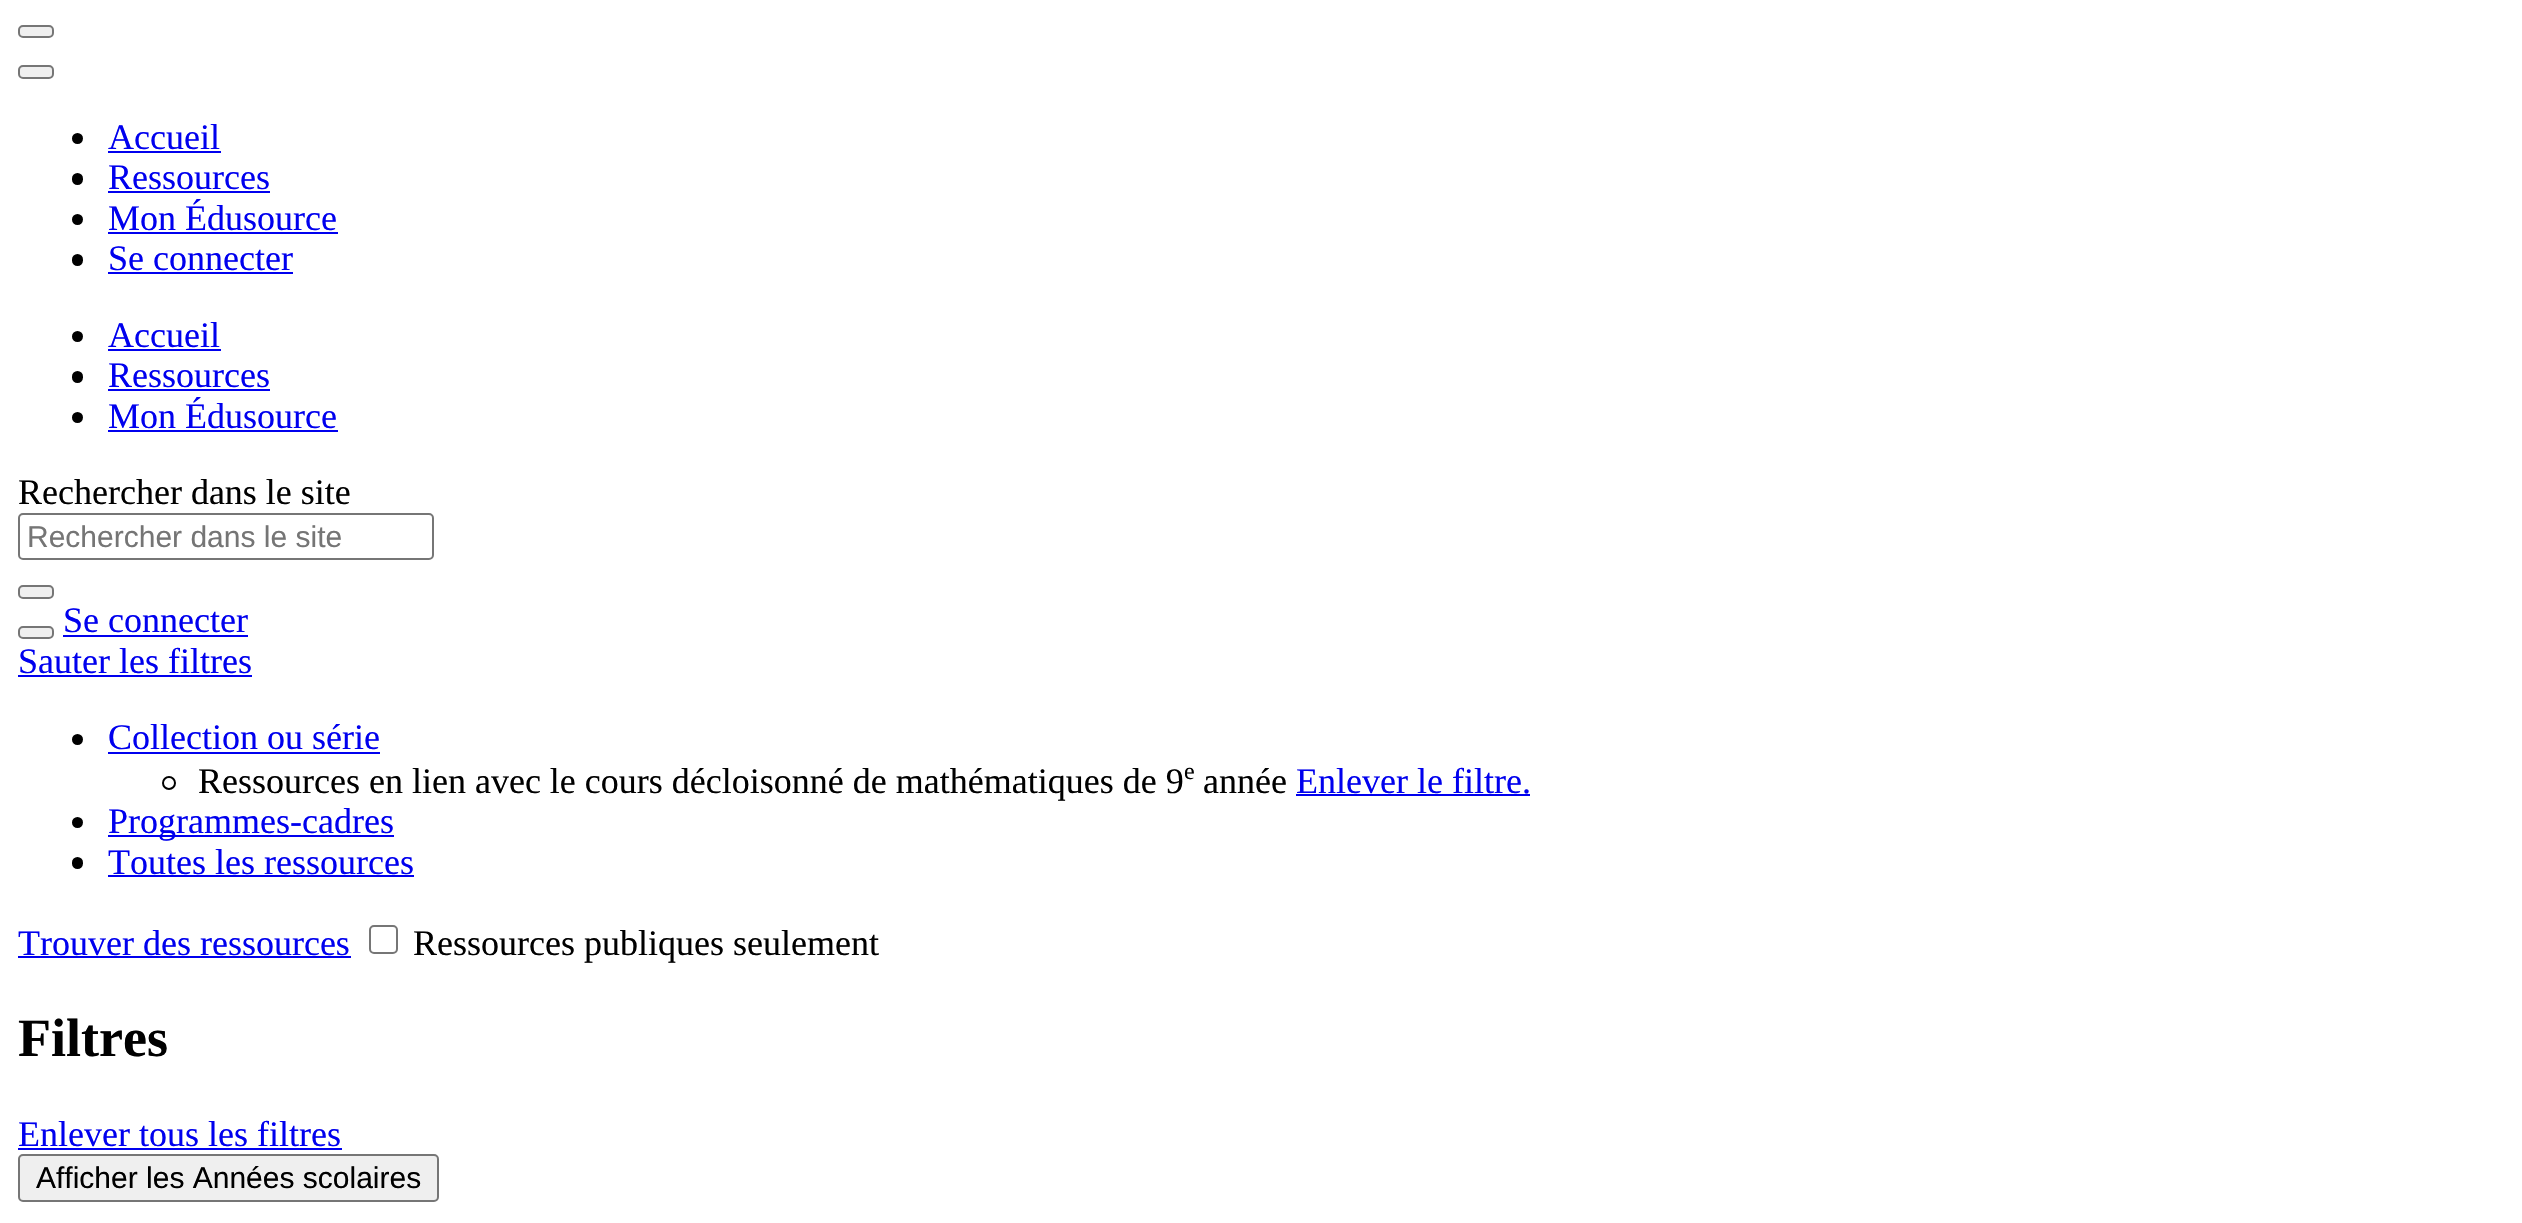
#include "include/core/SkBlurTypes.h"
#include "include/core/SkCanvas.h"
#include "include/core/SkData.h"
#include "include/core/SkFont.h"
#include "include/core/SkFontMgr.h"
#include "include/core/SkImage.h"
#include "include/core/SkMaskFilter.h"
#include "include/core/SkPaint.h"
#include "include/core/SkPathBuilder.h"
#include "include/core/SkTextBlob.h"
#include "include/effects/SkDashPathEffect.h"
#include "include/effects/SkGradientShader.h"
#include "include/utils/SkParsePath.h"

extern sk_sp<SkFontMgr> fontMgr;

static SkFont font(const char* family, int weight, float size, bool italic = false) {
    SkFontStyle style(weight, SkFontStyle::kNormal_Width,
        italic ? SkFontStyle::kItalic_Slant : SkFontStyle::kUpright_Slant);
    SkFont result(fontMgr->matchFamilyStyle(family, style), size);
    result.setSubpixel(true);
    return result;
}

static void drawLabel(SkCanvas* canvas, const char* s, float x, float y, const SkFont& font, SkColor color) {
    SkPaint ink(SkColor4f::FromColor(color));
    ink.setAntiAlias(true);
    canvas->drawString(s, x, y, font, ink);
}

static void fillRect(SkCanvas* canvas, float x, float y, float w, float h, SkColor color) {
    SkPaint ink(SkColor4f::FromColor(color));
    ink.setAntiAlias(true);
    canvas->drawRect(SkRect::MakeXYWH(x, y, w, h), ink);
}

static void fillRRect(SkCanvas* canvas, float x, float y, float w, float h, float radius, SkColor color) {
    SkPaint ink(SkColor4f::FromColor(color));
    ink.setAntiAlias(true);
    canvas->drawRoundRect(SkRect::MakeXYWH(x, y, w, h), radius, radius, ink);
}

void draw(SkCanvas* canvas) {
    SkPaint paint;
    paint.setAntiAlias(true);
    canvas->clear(0xFFFFFFFF);
    paint.setColor(0xFFEFEFEF);
    canvas->drawRoundRect(SkRect::MakeXYWH(19, 26, 34, 11), 4, 4, paint);
    paint.setStroke(true);
    paint.setStrokeWidth(2);
    paint.setColor(0xFF767676);
    canvas->drawRoundRect(SkRect::MakeXYWH(19, 26, 34, 11), 4, 4, paint);
    paint.setStroke(false);
    paint.setColor(0xFFEFEFEF);
    canvas->drawRoundRect(SkRect::MakeXYWH(19, 66, 34, 12), 4, 4, paint);
    paint.setStroke(true);
    paint.setColor(0xFF767676);
    canvas->drawRoundRect(SkRect::MakeXYWH(19, 66, 34, 12), 4, 4, paint);
    paint.setStroke(false);
    paint.setColor(0xFF000000);
    canvas->drawCircle(77.5f, 138.5f, 5.5f, paint);
    SkFont font1 = font("Liberation Serif", 400, 36);
    drawLabel(canvas, "Accueil", 108, 149, font1, 0xFF0000EE);
    fillRect(canvas, 108, 151, 113, 2, 0xFF0000EE);
    fillRRect(canvas, 72, 173, 11, 12, 5.5f, 0xFF000000);
    drawLabel(canvas, "Ressources", 108, 189, font1, 0xFF0000EE);
    fillRect(canvas, 108, 191, 162, 2, 0xFF0000EE);
    canvas->drawCircle(77.5f, 219.5f, 5.5f, paint);
    drawLabel(canvas, "Mon Édusource", 108, 230, font1, 0xFF0000EE);
    fillRect(canvas, 108, 232, 230, 2, 0xFF0000EE);
    fillRRect(canvas, 72, 254, 11, 12, 5.5f, 0xFF000000);
    drawLabel(canvas, "Se connecter", 108, 270, font1, 0xFF0000EE);
    fillRect(canvas, 108, 272, 185, 2, 0xFF0000EE);
    canvas->drawCircle(77.5f, 336.5f, 5.5f, paint);
    drawLabel(canvas, "Accueil", 108, 347, font1, 0xFF0000EE);
    fillRect(canvas, 108, 349, 113, 2, 0xFF0000EE);
    fillRRect(canvas, 72, 371, 11, 12, 5.5f, 0xFF000000);
    drawLabel(canvas, "Ressources", 108, 387, font1, 0xFF0000EE);
    fillRect(canvas, 108, 389, 162, 2, 0xFF0000EE);
    canvas->drawCircle(77.5f, 417.5f, 5.5f, paint);
    drawLabel(canvas, "Mon Édusource", 108, 428, font1, 0xFF0000EE);
    fillRect(canvas, 108, 430, 230, 2, 0xFF0000EE);
    drawLabel(canvas, "Rechercher dans le site", 18, 504, font1, 0xFF000000);
    paint.setStroke(true);
    paint.setColor(0xFF767676);
    canvas->drawRoundRect(SkRect::MakeXYWH(19, 514, 414, 45), 4, 4, paint);
    SkFont font2 = font("Liberation Sans", 400, 30);
    drawLabel(canvas, "Rechercher dans le site", 27, 547, font2, 0xFF757575);
    paint.setStroke(false);
    paint.setColor(0xFFEFEFEF);
    canvas->drawRoundRect(SkRect::MakeXYWH(19, 586, 34, 12), 4, 4, paint);
    paint.setStroke(true);
    paint.setColor(0xFF767676);
    canvas->drawRoundRect(SkRect::MakeXYWH(19, 586, 34, 12), 4, 4, paint);
    paint.setStroke(false);
    paint.setColor(0xFFEFEFEF);
    canvas->drawRoundRect(SkRect::MakeXYWH(19, 627, 34, 11), 4, 4, paint);
    paint.setStroke(true);
    paint.setColor(0xFF767676);
    canvas->drawRoundRect(SkRect::MakeXYWH(19, 627, 34, 11), 4, 4, paint);
    drawLabel(canvas, "Se connecter", 63, 632, font1, 0xFF0000EE);
    fillRect(canvas, 63, 635, 185, 2, 0xFF0000EE);
    drawLabel(canvas, "Sauter les filtres", 18, 673, font1, 0xFF0000EE);
    fillRect(canvas, 18, 675, 234, 2, 0xFF0000EE);
    paint.setStroke(false);
    paint.setColor(0xFF000000);
    canvas->drawCircle(77.5f, 739.5f, 5.5f, paint);
    drawLabel(canvas, "Collection ou série", 108, 749, font1, 0xFF0000EE);
    fillRect(canvas, 108, 752, 272, 2, 0xFF0000EE);
    paint.setStroke(true);
    canvas->drawCircle(169, 783, 6, paint);
    drawLabel(canvas, "Ressources en lien avec le cours décloisonné de mathématiques de 9", 198, 793, font1, 0xFF000000);
    SkFont font3 = font("Liberation Serif", 400, 24);
    drawLabel(canvas, "e", 1184, 779, font3, 0xFF000000);
    drawLabel(canvas, "année", 1203, 793, font1, 0xFF000000);
    drawLabel(canvas, "Enlever le filtre.", 1296, 793, font1, 0xFF0000EE);
    fillRect(canvas, 1296, 794, 234, 2, 0xFF0000EE);
    paint.setStroke(false);
    canvas->drawCircle(77.5f, 822.5f, 5.5f, paint);
    fillRect(canvas, 108, 835, 286, 2, 0xFF0000EE);
    drawLabel(canvas, "Programmes-cadres", 108, 833, font1, 0xFF0000EE);
    fillRRect(canvas, 72, 857, 11, 12, 5.5f, 0xFF000000);
    drawLabel(canvas, "Toutes les ressources", 108, 874, font1, 0xFF0000EE);
    fillRect(canvas, 108, 875, 306, 2, 0xFF0000EE);
    drawLabel(canvas, "Trouver des ressources", 18, 955, font1, 0xFF0000EE);
    fillRect(canvas, 18, 956, 333, 2, 0xFF0000EE);
    paint.setStroke(true);
    paint.setColor(0xFF767676);
    canvas->drawRoundRect(SkRect::MakeXYWH(370, 926, 27, 27), 4, 4, paint);
    drawLabel(canvas, "Ressources publiques seulement", 413, 955, font1, 0xFF000000);
    SkFont font4 = font("Liberation Serif", 700, 54);
    drawLabel(canvas, "Filtres", 18, 1056, font4, 0xFF000000);
    drawLabel(canvas, "Enlever tous les filtres", 18, 1146, font1, 0xFF0000EE);
    fillRect(canvas, 18, 1148, 324, 2, 0xFF0000EE);
    paint.setStroke(false);
    paint.setColor(0xFFEFEFEF);
    canvas->drawRoundRect(SkRect::MakeXYWH(19, 1155, 419, 46), 4, 4, paint);
    paint.setStroke(true);
    paint.setColor(0xFF767676);
    canvas->drawRoundRect(SkRect::MakeXYWH(19, 1155, 419, 46), 4, 4, paint);
    drawLabel(canvas, "Afficher les Années scolaires", 36, 1188, font2, 0xFF000000);
}
